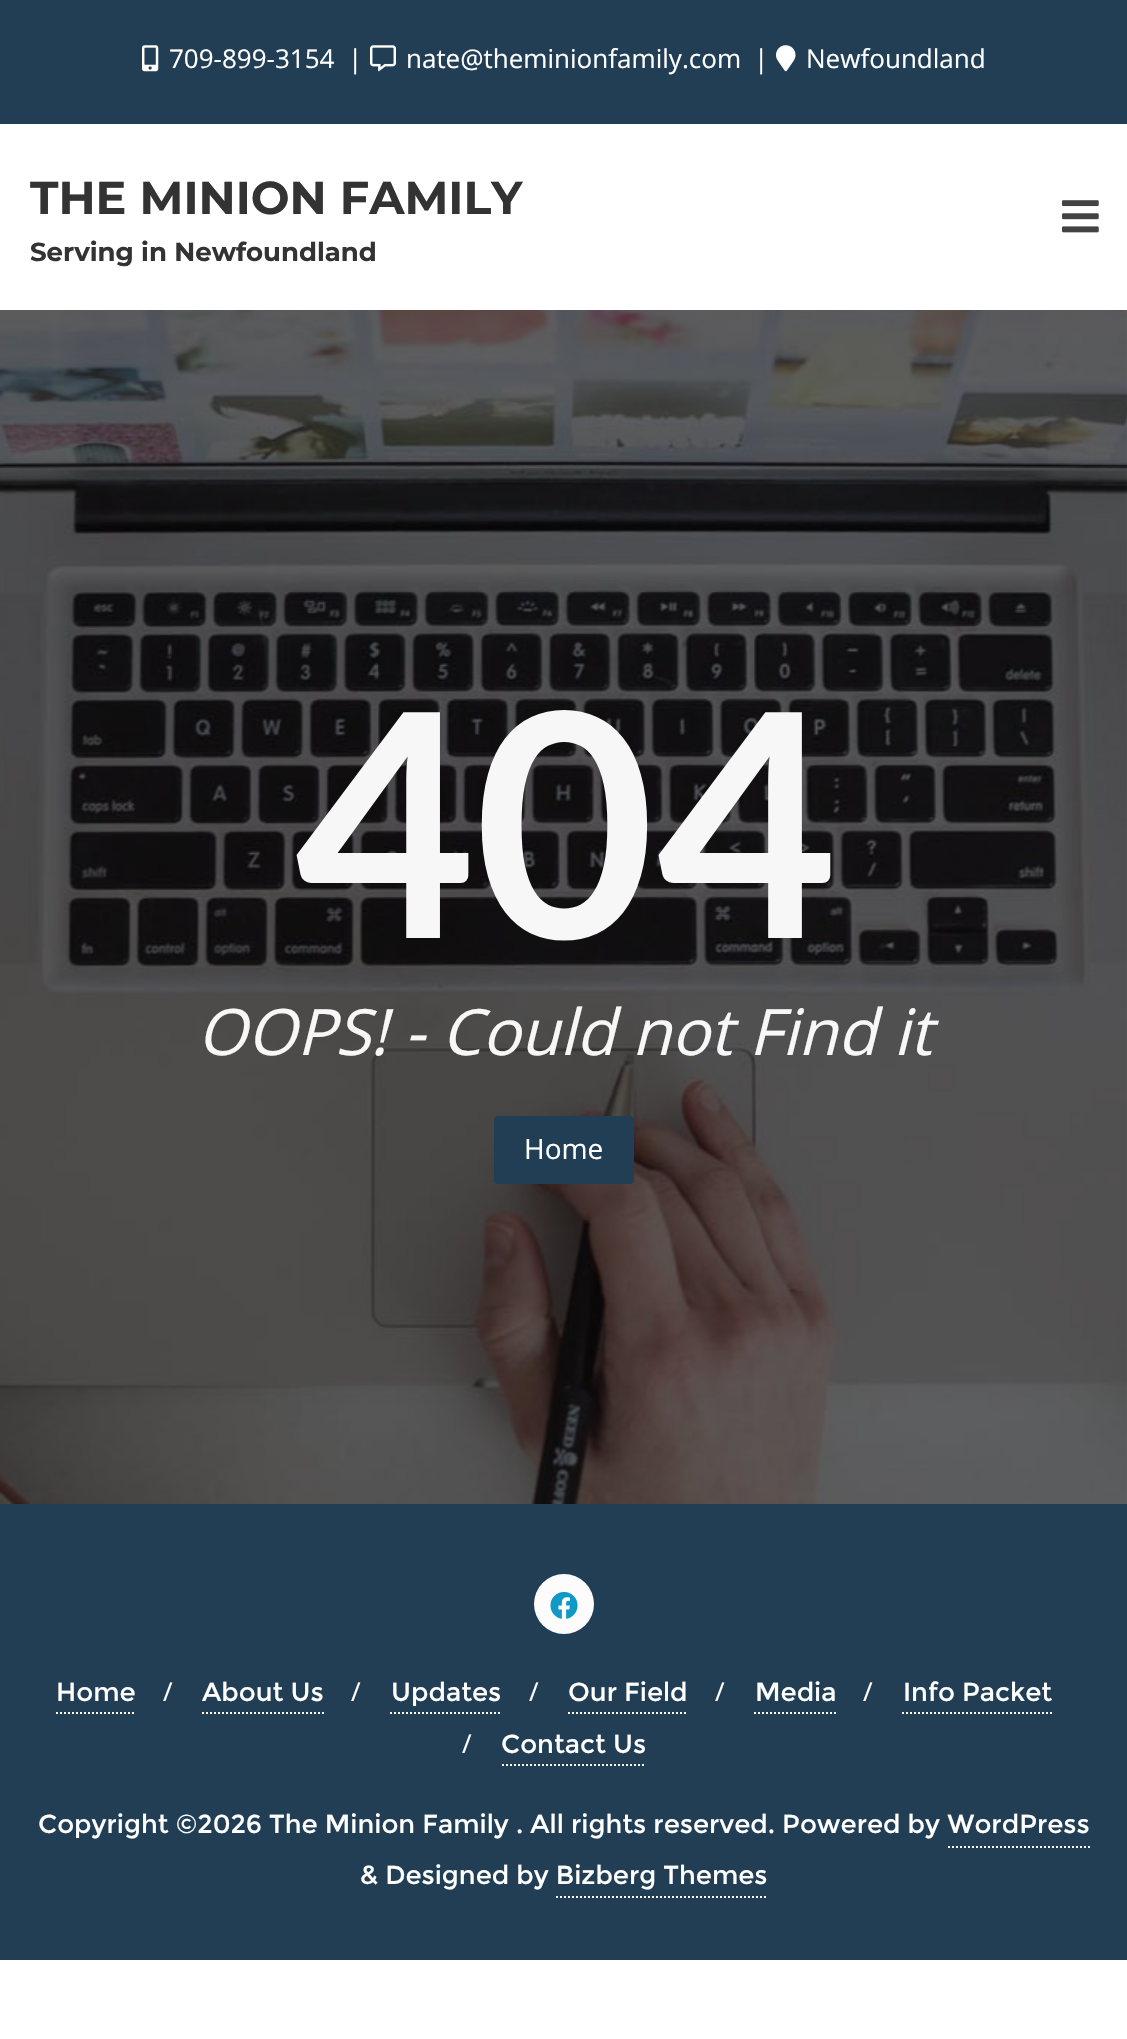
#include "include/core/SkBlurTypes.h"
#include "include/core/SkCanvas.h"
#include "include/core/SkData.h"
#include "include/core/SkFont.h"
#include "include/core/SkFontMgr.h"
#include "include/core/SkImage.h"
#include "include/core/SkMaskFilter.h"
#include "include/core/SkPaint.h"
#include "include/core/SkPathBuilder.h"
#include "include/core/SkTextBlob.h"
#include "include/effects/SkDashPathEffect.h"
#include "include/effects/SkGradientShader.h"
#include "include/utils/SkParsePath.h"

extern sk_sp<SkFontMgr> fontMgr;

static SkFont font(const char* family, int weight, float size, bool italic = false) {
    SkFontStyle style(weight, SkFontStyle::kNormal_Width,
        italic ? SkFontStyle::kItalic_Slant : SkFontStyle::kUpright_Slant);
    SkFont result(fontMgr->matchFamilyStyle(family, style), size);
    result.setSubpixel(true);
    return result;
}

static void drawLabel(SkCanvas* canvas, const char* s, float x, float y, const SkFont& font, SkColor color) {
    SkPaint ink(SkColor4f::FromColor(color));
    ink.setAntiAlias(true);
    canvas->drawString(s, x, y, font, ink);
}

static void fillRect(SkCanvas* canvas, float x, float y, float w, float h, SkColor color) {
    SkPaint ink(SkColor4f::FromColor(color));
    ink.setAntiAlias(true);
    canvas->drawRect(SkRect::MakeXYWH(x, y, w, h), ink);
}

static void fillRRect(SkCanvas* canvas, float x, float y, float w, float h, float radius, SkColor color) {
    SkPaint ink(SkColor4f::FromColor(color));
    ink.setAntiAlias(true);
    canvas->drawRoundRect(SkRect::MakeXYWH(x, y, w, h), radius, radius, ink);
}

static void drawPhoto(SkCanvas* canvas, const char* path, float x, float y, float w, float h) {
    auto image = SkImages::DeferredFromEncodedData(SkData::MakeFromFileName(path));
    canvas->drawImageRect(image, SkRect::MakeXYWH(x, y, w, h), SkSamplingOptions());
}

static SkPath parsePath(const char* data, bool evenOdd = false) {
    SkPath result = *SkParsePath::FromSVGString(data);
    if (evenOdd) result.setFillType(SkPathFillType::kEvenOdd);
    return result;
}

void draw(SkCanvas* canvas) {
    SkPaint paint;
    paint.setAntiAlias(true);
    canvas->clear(0xFFFFFFFF);
    fillRect(canvas, 0, 0, 1127, 124, 0xFF213E54);
    drawPhoto(canvas, "assets/img1.png", 142, 45, 17, 27);
    SkFont font1 = font("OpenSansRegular", 400, 26);
    drawLabel(canvas, "709-899-3154", 169, 68, font1, 0xFFFFFFFF);
    drawLabel(canvas, "|", 348, 68, font1, 0xFFFFFFFF);
    drawPhoto(canvas, "assets/img2.png", 370, 45, 26, 27);
    drawLabel(canvas, "nate@theminionfamily.com", 406, 68, font1, 0xFFFFFFFF);
    drawLabel(canvas, "|", 754, 68, font1, 0xFFFFFFFF);
    drawPhoto(canvas, "assets/img3.png", 776, 45, 20, 27);
    drawLabel(canvas, "Newfoundland", 806, 68, font1, 0xFFFFFFFF);
    SkFont font2 = font("Montserrat", 700, 46);
    drawLabel(canvas, "THE MINION FAMILY", 30, 214, font2, 0xFF333333);
    SkFont font3 = font("Montserrat", 700, 26);
    drawLabel(canvas, "Serving in Newfoundland", 30, 261, font3, 0xFF333333);
    drawPhoto(canvas, "assets/img4.png", 1062, 200, 37, 33);
    drawPhoto(canvas, "assets/img5.png", 0, 310, 1127, 1194);
    SkFont font4 = font("Lato", 700, 312);
    drawLabel(canvas, "404", 293, 938, font4, 0xFFF7F7F7);
    SkFont font5 = font("OpenSansRegular", 400, 64, true);
    drawLabel(canvas, "OOPS! - Could not Find it", 197, 1055, font5, 0xFFF7F7F7);
    fillRRect(canvas, 494, 1116, 140, 68, 4, 0xFF213E54);
    SkFont font6 = font("OpenSansRegular", 400, 28);
    drawLabel(canvas, "Home", 524, 1159, font6, 0xFFFFFFFF);
    fillRect(canvas, 0, 1504, 1127, 456, 0xFF213E54);
    paint.setColor(0xFFFCFCFC);
    canvas->drawCircle(564, 1604, 30, paint);
    drawPhoto(canvas, "assets/img6.png", 550, 1592, 28, 27);
    paint.setStroke(true);
    paint.setStrokeWidth(2);
    paint.setColor(0xFFFFFFFF);
    paint.setPathEffect(SkDashPathEffect::Make({{2, 2}}, 0));
    canvas->drawPath(parsePath("M56 1713H136"), paint);
    paint.setPathEffect(nullptr);
    SkFont font7 = font("Montserrat", 400, 26);
    drawLabel(canvas, "Home", 56, 1701, font7, 0xFFFFFFFF);
    drawLabel(canvas, "/", 163, 1701, font1, 0xFFFFFFFF);
    paint.setPathEffect(SkDashPathEffect::Make({{2, 2}}, 0));
    canvas->drawPath(parsePath("M202 1713H324"), paint);
    paint.setPathEffect(nullptr);
    drawLabel(canvas, "About Us", 202, 1701, font7, 0xFFFFFFFF);
    drawLabel(canvas, "/", 351, 1701, font1, 0xFFFFFFFF);
    paint.setPathEffect(SkDashPathEffect::Make({{2, 2}}, 0));
    canvas->drawPath(parsePath("M390 1713H502"), paint);
    paint.setPathEffect(nullptr);
    drawLabel(canvas, "Updates", 391, 1701, font7, 0xFFFFFFFF);
    drawLabel(canvas, "/", 529, 1701, font1, 0xFFFFFFFF);
    paint.setPathEffect(SkDashPathEffect::Make({{2, 2}}, 0));
    canvas->drawPath(parsePath("M568 1713H688"), paint);
    paint.setPathEffect(nullptr);
    drawLabel(canvas, "Our Field", 568, 1701, font7, 0xFFFFFFFF);
    drawLabel(canvas, "/", 715, 1701, font1, 0xFFFFFFFF);
    paint.setPathEffect(SkDashPathEffect::Make({{2, 2}}, 0));
    canvas->drawPath(parsePath("M754 1713H836"), paint);
    paint.setPathEffect(nullptr);
    drawLabel(canvas, "Media", 755, 1701, font7, 0xFFFFFFFF);
    drawLabel(canvas, "/", 863, 1701, font1, 0xFFFFFFFF);
    paint.setPathEffect(SkDashPathEffect::Make({{2, 2}}, 0));
    canvas->drawPath(parsePath("M902 1713H1052"), paint);
    paint.setPathEffect(nullptr);
    drawLabel(canvas, "Info Packet", 903, 1701, font7, 0xFFFFFFFF);
    drawLabel(canvas, "/", 462, 1753, font1, 0xFFFFFFFF);
    paint.setPathEffect(SkDashPathEffect::Make({{2, 2}}, 0));
    canvas->drawPath(parsePath("M502 1765H646"), paint);
    paint.setPathEffect(nullptr);
    drawLabel(canvas, "Contact Us", 501, 1753, font7, 0xFFFFFFFF);
    drawLabel(canvas, "Copyright ©2026 The Minion Family . All rights reserved. Powered by WordPress", 38, 1833, font7, 0xFFFFFFFF);
    paint.setPathEffect(SkDashPathEffect::Make({{2, 2}}, 0));
    canvas->drawPath(parsePath("M948 1847H1090"), paint);
    paint.setPathEffect(nullptr);
    drawLabel(canvas, "& Designed by Bizberg Themes", 360, 1884, font7, 0xFFFFFFFF);
    paint.setPathEffect(SkDashPathEffect::Make({{2, 2}}, 0));
    canvas->drawPath(parsePath("M556 1897H768"), paint);
    paint.setPathEffect(nullptr);
}
